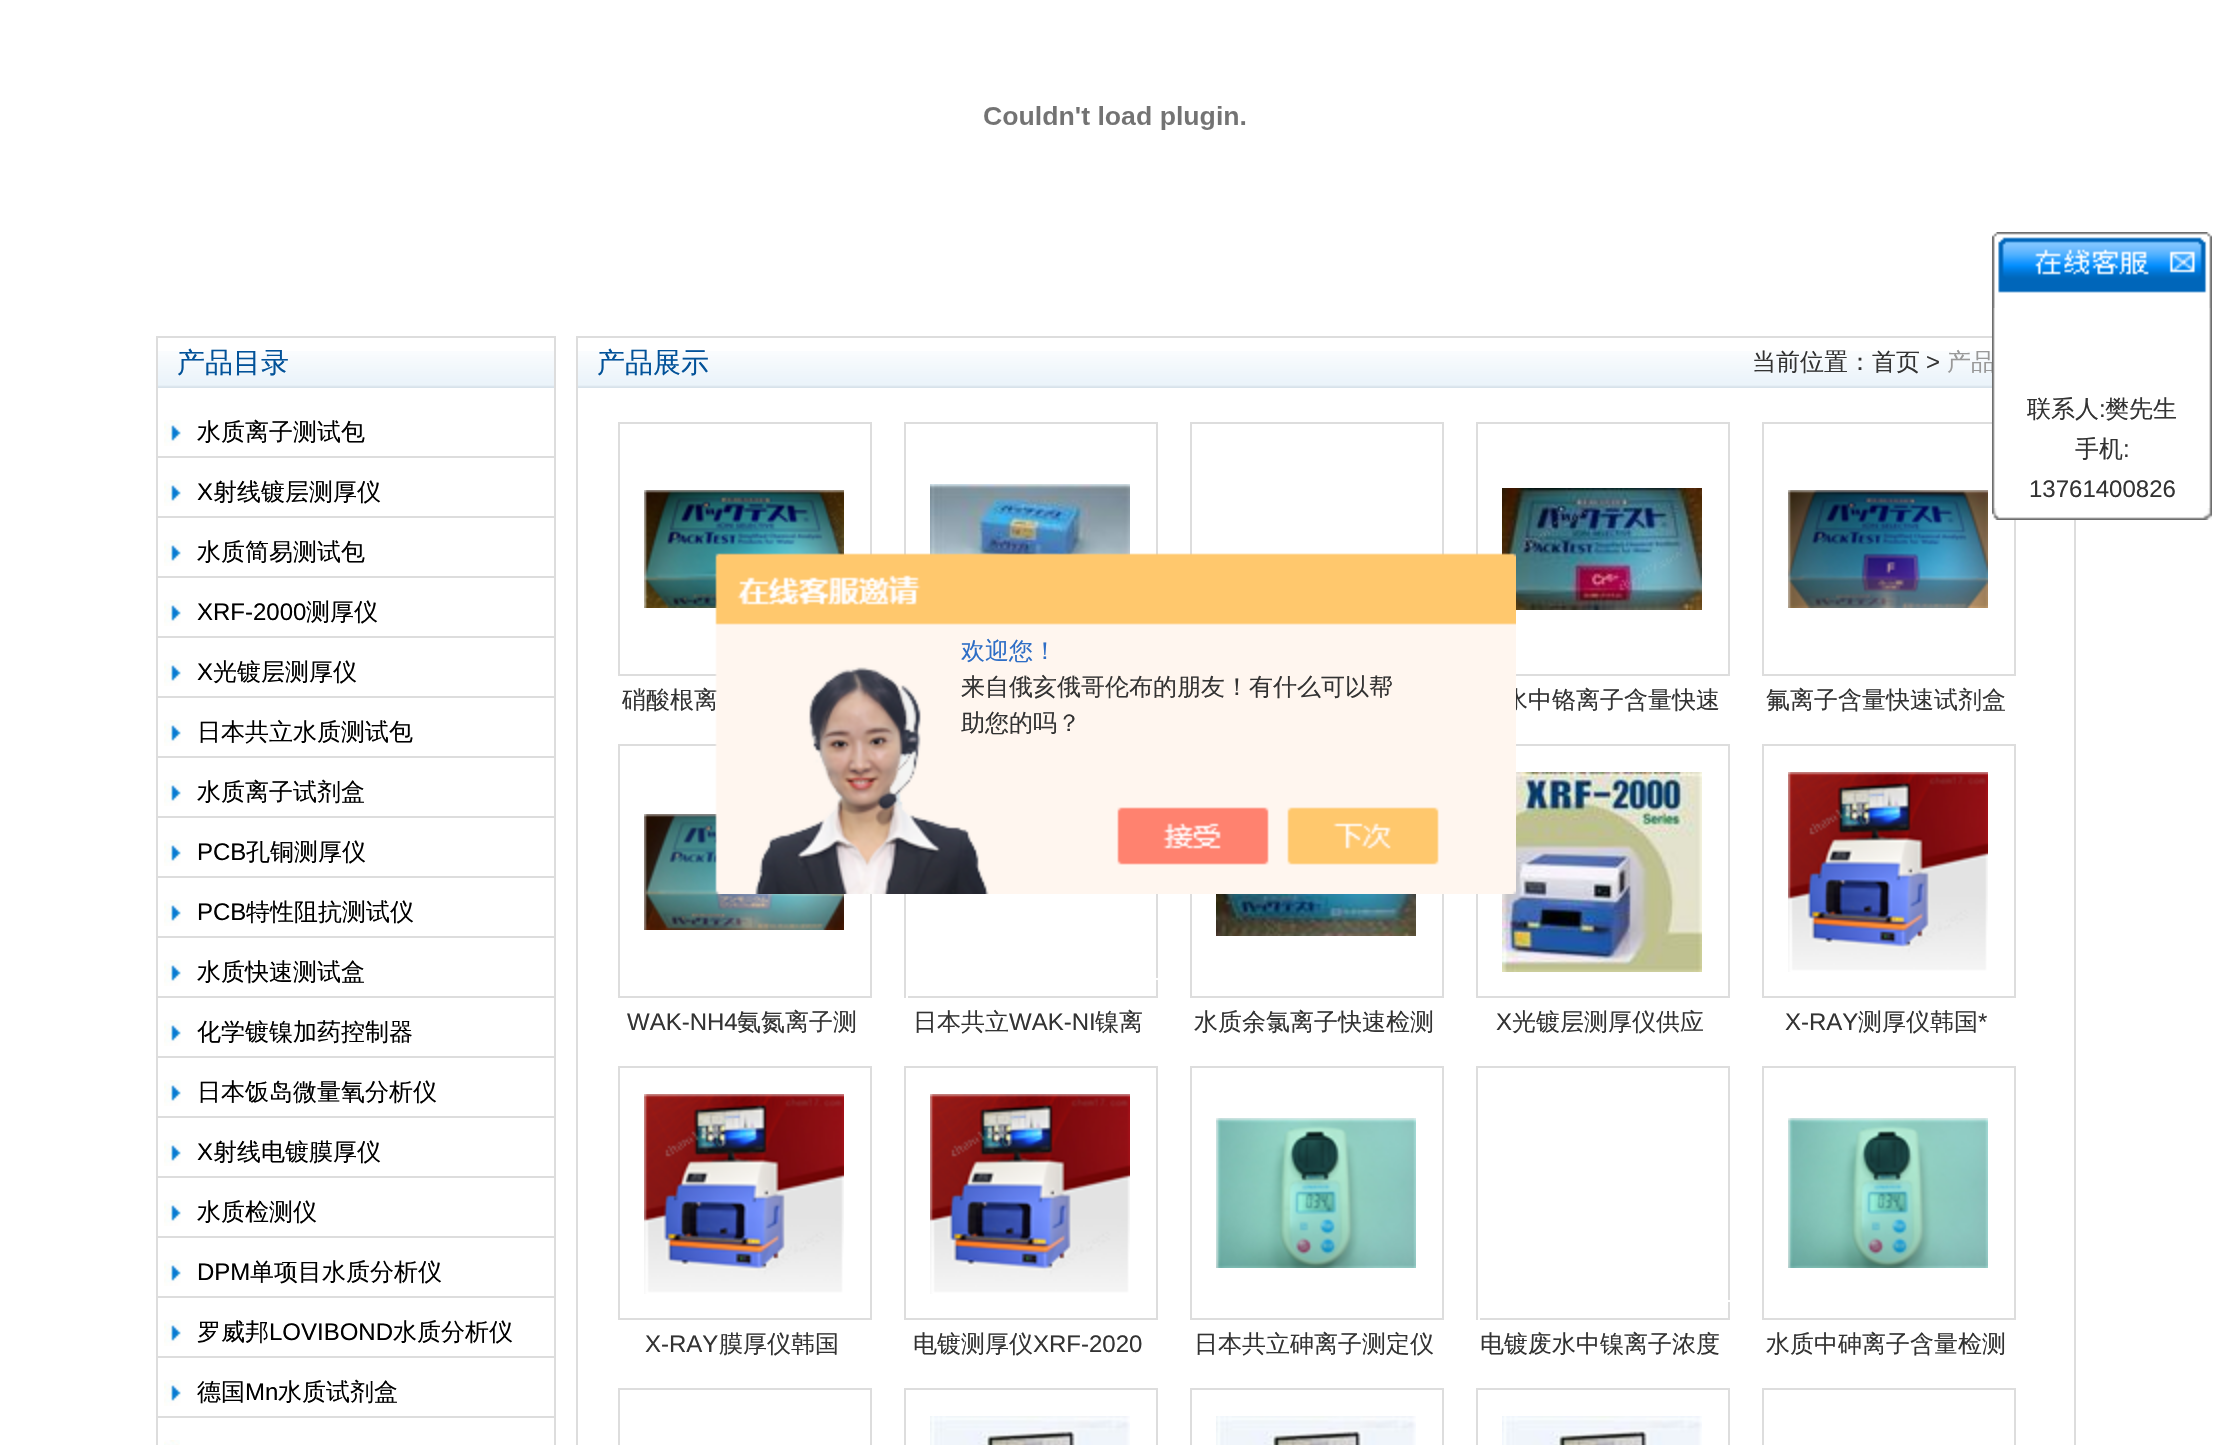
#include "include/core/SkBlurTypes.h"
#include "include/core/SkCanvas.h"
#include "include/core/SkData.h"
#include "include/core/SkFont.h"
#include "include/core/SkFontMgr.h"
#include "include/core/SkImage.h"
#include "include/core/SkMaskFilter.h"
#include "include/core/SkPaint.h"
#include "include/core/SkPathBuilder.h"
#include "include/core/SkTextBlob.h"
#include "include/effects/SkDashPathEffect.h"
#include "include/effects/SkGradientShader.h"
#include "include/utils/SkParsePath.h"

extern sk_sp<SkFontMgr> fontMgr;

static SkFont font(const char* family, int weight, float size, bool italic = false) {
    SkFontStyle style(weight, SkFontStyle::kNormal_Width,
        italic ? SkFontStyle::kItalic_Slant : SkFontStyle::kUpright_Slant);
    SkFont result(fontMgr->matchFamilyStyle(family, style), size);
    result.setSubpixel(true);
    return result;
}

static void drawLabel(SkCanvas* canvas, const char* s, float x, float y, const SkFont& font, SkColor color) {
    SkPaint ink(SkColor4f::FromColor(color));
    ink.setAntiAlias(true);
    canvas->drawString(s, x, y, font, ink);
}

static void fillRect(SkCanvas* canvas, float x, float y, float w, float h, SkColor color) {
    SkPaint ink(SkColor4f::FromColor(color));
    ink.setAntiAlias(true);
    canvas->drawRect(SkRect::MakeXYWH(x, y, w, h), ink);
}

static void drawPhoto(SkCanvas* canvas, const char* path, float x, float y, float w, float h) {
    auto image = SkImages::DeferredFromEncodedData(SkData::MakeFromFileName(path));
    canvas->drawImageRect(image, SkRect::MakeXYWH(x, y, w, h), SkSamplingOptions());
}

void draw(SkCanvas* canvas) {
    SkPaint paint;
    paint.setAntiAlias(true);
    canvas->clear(0xFFFFFFFF);
    drawPhoto(canvas, "assets/img1.png", 984, 106, 262, 24);
    paint.setStroke(true);
    paint.setStrokeWidth(2);
    paint.setColor(0xFFDDDDDD);
    canvas->drawRect(SkRect::MakeXYWH(157, 337, 398, 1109), paint);
    drawPhoto(canvas, "assets/img2.png", 158, 351, 396, 37);
    SkFont font1 = font("WenQuanYi Zen Hei", 500, 28);
    drawLabel(canvas, "产品目录", 177, 372, font1, 0xFF025299);
    fillRect(canvas, 158, 456, 396, 2, 0xFFDDDDDD);
    drawPhoto(canvas, "assets/img3.png", 164, 420, 17, 26);
    SkFont font2 = font("WenQuanYi Zen Hei", 500, 24);
    drawLabel(canvas, "水质离子测试包", 197, 440, font2, 0xFF000000);
    fillRect(canvas, 158, 516, 396, 2, 0xFFDDDDDD);
    drawPhoto(canvas, "assets/img3.png", 164, 480, 17, 26);
    SkFont font3 = font("Liberation Sans", 400, 24);
    drawLabel(canvas, "X", 197, 500, font3, 0xFF000000);
    drawLabel(canvas, "射线镀层测厚仪", 213, 500, font2, 0xFF000000);
    fillRect(canvas, 158, 576, 396, 2, 0xFFDDDDDD);
    drawPhoto(canvas, "assets/img3.png", 164, 540, 17, 26);
    drawLabel(canvas, "水质简易测试包", 197, 560, font2, 0xFF000000);
    fillRect(canvas, 158, 636, 396, 2, 0xFFDDDDDD);
    drawPhoto(canvas, "assets/img3.png", 164, 600, 17, 26);
    drawLabel(canvas, "XRF-2000", 197, 620, font3, 0xFF000000);
    drawLabel(canvas, "测厚仪", 306, 620, font2, 0xFF000000);
    fillRect(canvas, 158, 696, 396, 2, 0xFFDDDDDD);
    drawPhoto(canvas, "assets/img3.png", 164, 660, 17, 26);
    drawLabel(canvas, "X", 197, 680, font3, 0xFF000000);
    drawLabel(canvas, "光镀层测厚仪", 213, 680, font2, 0xFF000000);
    fillRect(canvas, 158, 756, 396, 2, 0xFFDDDDDD);
    drawPhoto(canvas, "assets/img3.png", 164, 720, 17, 26);
    drawLabel(canvas, "日本共立水质测试包", 197, 740, font2, 0xFF000000);
    fillRect(canvas, 158, 816, 396, 2, 0xFFDDDDDD);
    drawPhoto(canvas, "assets/img3.png", 164, 780, 17, 26);
    drawLabel(canvas, "水质离子试剂盒", 197, 800, font2, 0xFF000000);
    fillRect(canvas, 158, 876, 396, 2, 0xFFDDDDDD);
    drawPhoto(canvas, "assets/img3.png", 164, 840, 17, 26);
    drawLabel(canvas, "PCB", 197, 860, font3, 0xFF000000);
    drawLabel(canvas, "孔铜测厚仪", 246, 860, font2, 0xFF000000);
    fillRect(canvas, 158, 936, 396, 2, 0xFFDDDDDD);
    drawPhoto(canvas, "assets/img3.png", 164, 900, 17, 26);
    drawLabel(canvas, "PCB", 197, 920, font3, 0xFF000000);
    drawLabel(canvas, "特性阻抗测试仪", 246, 920, font2, 0xFF000000);
    fillRect(canvas, 158, 996, 396, 2, 0xFFDDDDDD);
    drawPhoto(canvas, "assets/img3.png", 164, 960, 17, 26);
    drawLabel(canvas, "水质快速测试盒", 197, 980, font2, 0xFF000000);
    fillRect(canvas, 158, 1056, 396, 2, 0xFFDDDDDD);
    drawPhoto(canvas, "assets/img3.png", 164, 1020, 17, 26);
    drawLabel(canvas, "化学镀镍加药控制器", 197, 1040, font2, 0xFF000000);
    fillRect(canvas, 158, 1116, 396, 2, 0xFFDDDDDD);
    drawPhoto(canvas, "assets/img3.png", 164, 1080, 17, 26);
    drawLabel(canvas, "日本饭岛微量氧分析仪", 197, 1100, font2, 0xFF000000);
    fillRect(canvas, 158, 1176, 396, 2, 0xFFDDDDDD);
    drawPhoto(canvas, "assets/img3.png", 164, 1140, 17, 26);
    drawLabel(canvas, "X", 197, 1160, font3, 0xFF000000);
    drawLabel(canvas, "射线电镀膜厚仪", 213, 1160, font2, 0xFF000000);
    fillRect(canvas, 158, 1236, 396, 2, 0xFFDDDDDD);
    drawPhoto(canvas, "assets/img3.png", 164, 1200, 17, 26);
    drawLabel(canvas, "水质检测仪", 197, 1220, font2, 0xFF000000);
    fillRect(canvas, 158, 1296, 396, 2, 0xFFDDDDDD);
    drawPhoto(canvas, "assets/img3.png", 164, 1260, 17, 26);
    drawLabel(canvas, "DPM", 197, 1280, font3, 0xFF000000);
    drawLabel(canvas, "单项目水质分析仪", 250, 1280, font2, 0xFF000000);
    fillRect(canvas, 158, 1356, 396, 2, 0xFFDDDDDD);
    drawPhoto(canvas, "assets/img3.png", 164, 1320, 17, 26);
    drawLabel(canvas, "罗威邦", 197, 1340, font2, 0xFF000000);
    drawLabel(canvas, "LOVIBOND", 269, 1340, font3, 0xFF000000);
    drawLabel(canvas, "水质分析仪", 393, 1340, font2, 0xFF000000);
    fillRect(canvas, 158, 1416, 396, 2, 0xFFDDDDDD);
    drawPhoto(canvas, "assets/img3.png", 164, 1380, 17, 26);
    drawLabel(canvas, "德国", 197, 1400, font2, 0xFF000000);
    drawLabel(canvas, "Mn", 245, 1400, font3, 0xFF000000);
    drawLabel(canvas, "水质试剂盒", 278, 1400, font2, 0xFF000000);
    drawPhoto(canvas, "assets/img4.png", 164, 1440, 16, 5);
    canvas->drawRect(SkRect::MakeXYWH(577, 337, 1498, 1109), paint);
    drawPhoto(canvas, "assets/img5.png", 578, 351, 1414, 37);
    drawLabel(canvas, "产品展示", 597, 372, font1, 0xFF025299);
    drawLabel(canvas, "当前位置：首页", 1752, 370, font2, 0xFF333333);
    drawLabel(canvas, ">", 1926, 370, font3, 0xFF333333);
    drawLabel(canvas, "产品", 1947, 370, font2, 0xFF999999);
    canvas->drawRect(SkRect::MakeXYWH(905, 423, 252, 252), paint);
    drawPhoto(canvas, "assets/img6.png", 930, 484, 200, 71);
    canvas->drawRect(SkRect::MakeXYWH(1191, 423, 252, 252), paint);
    canvas->drawRect(SkRect::MakeXYWH(619, 423, 252, 252), paint);
    drawPhoto(canvas, "assets/img7.png", 644, 490, 200, 118);
    drawLabel(canvas, "硝酸根离", 622, 708, font2, 0xFF333333);
    canvas->drawRect(SkRect::MakeXYWH(1477, 423, 252, 252), paint);
    drawPhoto(canvas, "assets/img8.png", 1502, 488, 200, 122);
    drawLabel(canvas, "水中铬离子含量快速", 1504, 708, font2, 0xFF333333);
    canvas->drawRect(SkRect::MakeXYWH(1763, 423, 252, 252), paint);
    drawPhoto(canvas, "assets/img9.png", 1788, 490, 200, 118);
    drawLabel(canvas, "氟离子含量快速试剂盒", 1766, 708, font2, 0xFF333333);
    canvas->drawRect(SkRect::MakeXYWH(619, 745, 252, 252), paint);
    drawPhoto(canvas, "assets/img10.png", 644, 814, 200, 116);
    drawLabel(canvas, "WAK-NH4", 627, 1030, font3, 0xFF333333);
    drawLabel(canvas, "氨氮离子测", 737, 1030, font2, 0xFF333333);
    canvas->drawRect(SkRect::MakeXYWH(905, 745, 252, 252), paint);
    paint.setColor(0xFFFFFFFF);
    canvas->drawRect(SkRect::MakeXYWH(907, 979, 252, 30), paint);
    drawLabel(canvas, "日本共立", 913, 1030, font2, 0xFF333333);
    drawLabel(canvas, "WAK-NI", 1009, 1030, font3, 0xFF333333);
    drawLabel(canvas, "镍离", 1095, 1030, font2, 0xFF333333);
    paint.setColor(0xFFDDDDDD);
    canvas->drawRect(SkRect::MakeXYWH(1191, 745, 252, 252), paint);
    drawPhoto(canvas, "assets/img11.png", 1216, 894, 200, 42);
    drawLabel(canvas, "水质余氯离子快速检测", 1194, 1030, font2, 0xFF333333);
    canvas->drawRect(SkRect::MakeXYWH(1477, 745, 252, 252), paint);
    drawPhoto(canvas, "assets/img12.png", 1502, 772, 200, 200);
    drawLabel(canvas, "X", 1496, 1030, font3, 0xFF333333);
    drawLabel(canvas, "光镀层测厚仪供应", 1512, 1030, font2, 0xFF333333);
    canvas->drawRect(SkRect::MakeXYWH(1763, 745, 252, 252), paint);
    drawPhoto(canvas, "assets/img13.png", 1788, 772, 200, 200);
    drawLabel(canvas, "X-RAY", 1785, 1030, font3, 0xFF333333);
    drawLabel(canvas, "测厚仪韩国", 1858, 1030, font2, 0xFF333333);
    drawLabel(canvas, "*", 1978, 1030, font3, 0xFF333333);
    canvas->drawRect(SkRect::MakeXYWH(619, 1067, 252, 252), paint);
    drawPhoto(canvas, "assets/img13.png", 644, 1094, 200, 200);
    drawLabel(canvas, "X-RAY", 645, 1352, font3, 0xFF333333);
    drawLabel(canvas, "膜厚仪韩国", 719, 1352, font2, 0xFF333333);
    canvas->drawRect(SkRect::MakeXYWH(905, 1067, 252, 252), paint);
    drawPhoto(canvas, "assets/img13.png", 930, 1094, 200, 200);
    drawLabel(canvas, "电镀测厚仪", 913, 1352, font2, 0xFF333333);
    drawLabel(canvas, "XRF-2020", 1033, 1352, font3, 0xFF333333);
    canvas->drawRect(SkRect::MakeXYWH(1191, 1067, 252, 252), paint);
    drawPhoto(canvas, "assets/img14.png", 1216, 1118, 200, 150);
    drawLabel(canvas, "日本共立砷离子测定仪", 1194, 1352, font2, 0xFF333333);
    canvas->drawRect(SkRect::MakeXYWH(1477, 1067, 252, 252), paint);
    paint.setColor(0xFFFFFFFF);
    canvas->drawRect(SkRect::MakeXYWH(1479, 1301, 252, 30), paint);
    drawLabel(canvas, "电镀废水中镍离子浓度", 1480, 1352, font2, 0xFF333333);
    paint.setColor(0xFFDDDDDD);
    canvas->drawRect(SkRect::MakeXYWH(1763, 1067, 252, 252), paint);
    drawPhoto(canvas, "assets/img14.png", 1788, 1118, 200, 150);
    drawLabel(canvas, "水质中砷离子含量检测", 1766, 1352, font2, 0xFF333333);
    canvas->drawRect(SkRect::MakeXYWH(619, 1389, 252, 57), paint);
    canvas->drawRect(SkRect::MakeXYWH(905, 1389, 252, 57), paint);
    drawPhoto(canvas, "assets/img15.png", 930, 1416, 200, 29);
    canvas->drawRect(SkRect::MakeXYWH(1191, 1389, 252, 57), paint);
    drawPhoto(canvas, "assets/img15.png", 1216, 1416, 200, 29);
    canvas->drawRect(SkRect::MakeXYWH(1477, 1389, 252, 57), paint);
    drawPhoto(canvas, "assets/img16.png", 1502, 1416, 200, 29);
    canvas->drawRect(SkRect::MakeXYWH(1763, 1389, 252, 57), paint);
    drawPhoto(canvas, "assets/img17.png", 1992, 232, 220, 76);
    drawPhoto(canvas, "assets/img18.png", 1992, 308, 220, 200);
    drawLabel(canvas, "联系人", 2027, 417, font2, 0xFF333333);
    drawLabel(canvas, ":", 2099, 417, font3, 0xFF333333);
    drawLabel(canvas, "樊先生", 2105, 417, font2, 0xFF333333);
    drawLabel(canvas, "手机", 2075, 457, font2, 0xFF333333);
    drawLabel(canvas, ":", 2123, 457, font3, 0xFF333333);
    drawLabel(canvas, "13761400826", 2029, 497, font3, 0xFF333333);
    drawPhoto(canvas, "assets/img19.png", 1992, 508, 220, 12);
    drawPhoto(canvas, "assets/img20.png", 715, 553, 801, 341);
    drawLabel(canvas, "欢迎您！", 961, 659, font2, 0xFF2E6EC6);
    drawLabel(canvas, "来自俄亥俄哥伦布的朋友！有什么可以帮", 961, 695, font2, 0xFF333333);
    drawLabel(canvas, "助您的吗？", 961, 731, font2, 0xFF333333);
}
